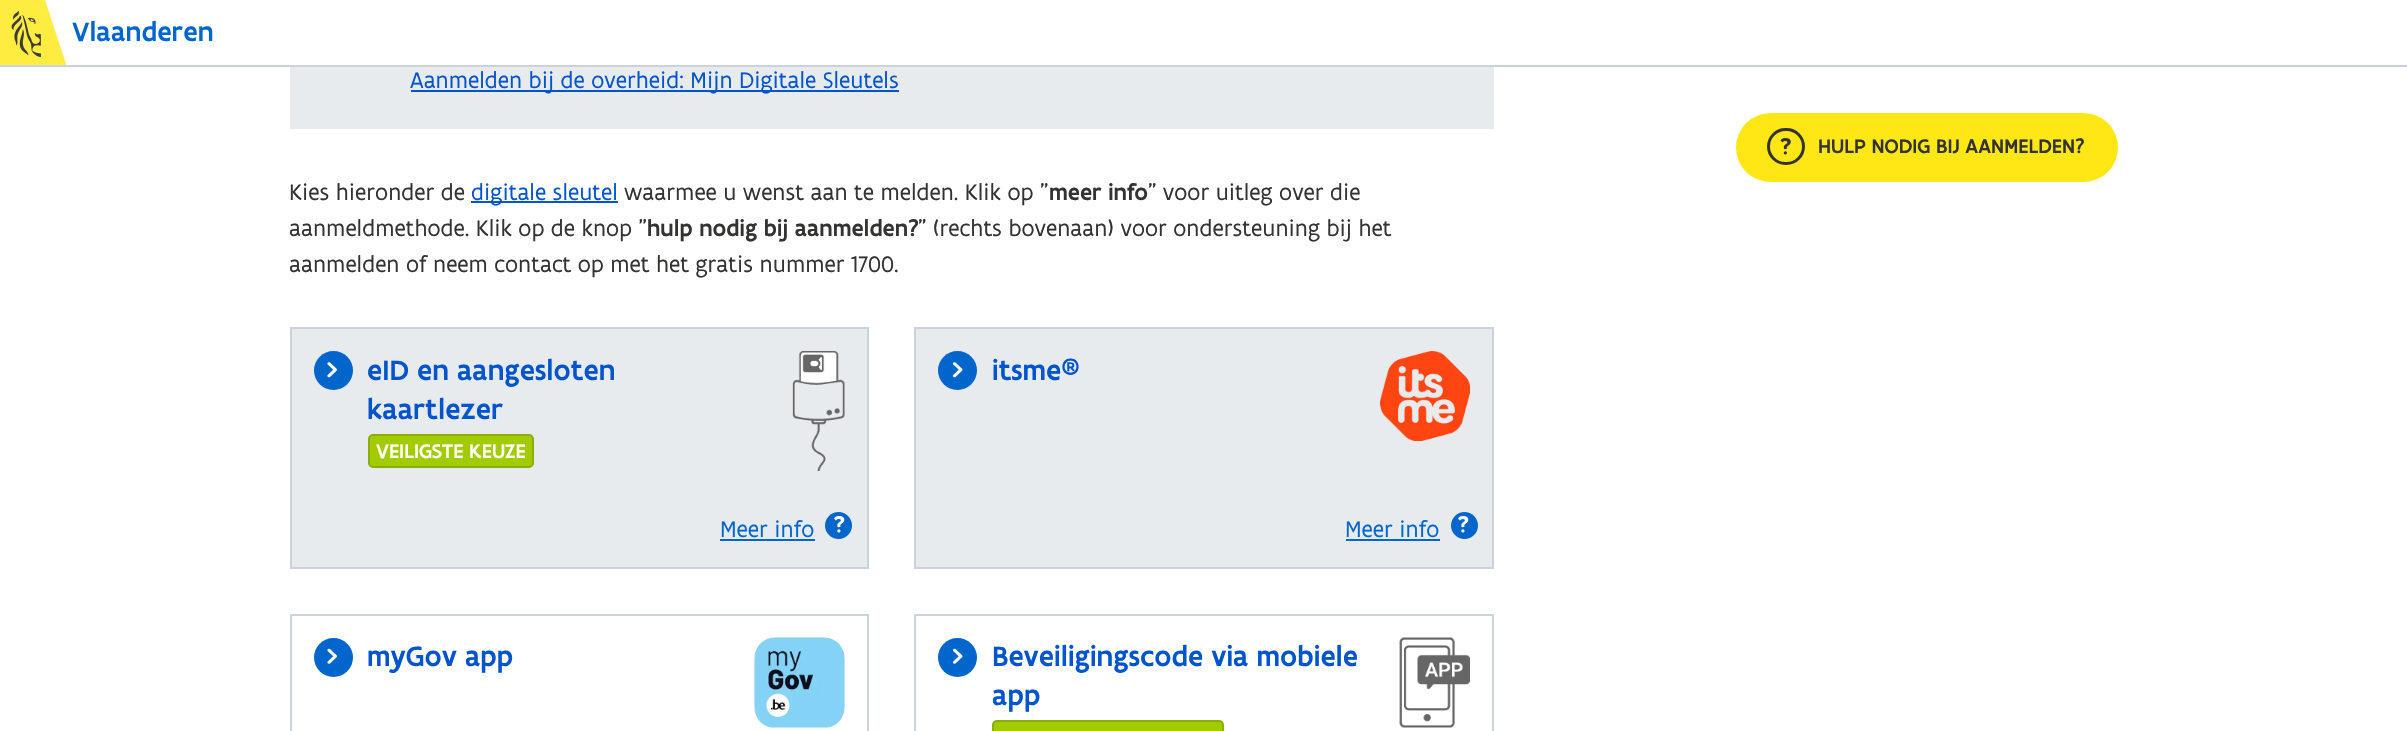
#include "include/core/SkBlurTypes.h"
#include "include/core/SkCanvas.h"
#include "include/core/SkData.h"
#include "include/core/SkFont.h"
#include "include/core/SkFontMgr.h"
#include "include/core/SkImage.h"
#include "include/core/SkMaskFilter.h"
#include "include/core/SkPaint.h"
#include "include/core/SkPathBuilder.h"
#include "include/core/SkTextBlob.h"
#include "include/effects/SkDashPathEffect.h"
#include "include/effects/SkGradientShader.h"
#include "include/utils/SkParsePath.h"

extern sk_sp<SkFontMgr> fontMgr;

static SkFont font(const char* family, int weight, float size, bool italic = false) {
    SkFontStyle style(weight, SkFontStyle::kNormal_Width,
        italic ? SkFontStyle::kItalic_Slant : SkFontStyle::kUpright_Slant);
    SkFont result(fontMgr->matchFamilyStyle(family, style), size);
    result.setSubpixel(true);
    return result;
}

static void drawLabel(SkCanvas* canvas, const char* s, float x, float y, const SkFont& font, SkColor color) {
    SkPaint ink(SkColor4f::FromColor(color));
    ink.setAntiAlias(true);
    canvas->drawString(s, x, y, font, ink);
}

static void fillRect(SkCanvas* canvas, float x, float y, float w, float h, SkColor color) {
    SkPaint ink(SkColor4f::FromColor(color));
    ink.setAntiAlias(true);
    canvas->drawRect(SkRect::MakeXYWH(x, y, w, h), ink);
}

static void fillRRect(SkCanvas* canvas, float x, float y, float w, float h, float radius, SkColor color) {
    SkPaint ink(SkColor4f::FromColor(color));
    ink.setAntiAlias(true);
    canvas->drawRoundRect(SkRect::MakeXYWH(x, y, w, h), radius, radius, ink);
}

static void drawPhoto(SkCanvas* canvas, const char* path, float x, float y, float w, float h) {
    auto image = SkImages::DeferredFromEncodedData(SkData::MakeFromFileName(path));
    canvas->drawImageRect(image, SkRect::MakeXYWH(x, y, w, h), SkSamplingOptions());
}

static SkPath parsePath(const char* data, bool evenOdd = false) {
    SkPath result = *SkParsePath::FromSVGString(data);
    if (evenOdd) result.setFillType(SkPathFillType::kEvenOdd);
    return result;
}

void draw(SkCanvas* canvas) {
    SkPaint paint;
    paint.setAntiAlias(true);
    canvas->clear(0xFFFFFFFF);
    fillRect(canvas, 0, 65, 2407, 2, 0xFFCBD2DA);
    fillRect(canvas, 0, 0, 66, 65, 0xFFFFEC40);
    drawPhoto(canvas, "assets/img1.png", 11, 11, 30, 46);
    paint.setColor(0xFFFFFFFF);
    canvas->drawPath(parsePath("M45 0H66V64Z"), paint);
    SkFont font1 = font("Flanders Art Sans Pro", 500, 28.5f);
    drawLabel(canvas, "Vlaanderen", 72, 41, font1, 0xFF0066CC);
    fillRect(canvas, 290, 67, 1204, 62, 0xFFE8EBEE);
    fillRect(canvas, 411, 90, 488, 2, 0xFF0055CC);
    SkFont font2 = font("Flanders Art Sans Pro", 400, 24);
    drawLabel(canvas, "Aanmelden bij de overheid: Mijn Digitale Sleutels", 410, 88, font2, 0xFF0055CC);
    drawLabel(canvas, "Kies hieronder de", 289, 200, font2, 0xFF333332);
    fillRect(canvas, 471, 201, 147, 2, 0xFF0055CC);
    drawLabel(canvas, "digitale sleutel", 471, 200, font2, 0xFF0055CC);
    drawLabel(canvas, "waarmee u wenst aan te melden. Klik op \"", 624, 200, font2, 0xFF333332);
    SkFont font3 = font("Flanders Art Sans Pro", 500, 24);
    drawLabel(canvas, "meer info", 1049, 200, font3, 0xFF333332);
    drawLabel(canvas, "\" voor uitleg over die", 1148, 200, font2, 0xFF333332);
    drawLabel(canvas, "aanmeldmethode. Klik op de knop \"", 289, 236, font2, 0xFF333332);
    drawLabel(canvas, "hulp nodig bij aanmelden?", 647, 236, font3, 0xFF333332);
    drawLabel(canvas, "\" (rechts bovenaan) voor ondersteuning bij het", 918, 236, font2, 0xFF333332);
    drawLabel(canvas, "aanmelden of neem contact op met het gratis nummer 1700.", 289, 272, font2, 0xFF333332);
    paint.setColor(0xFFE8EBEE);
    canvas->drawRect(SkRect::MakeXYWH(291, 328, 577, 240), paint);
    paint.setStroke(true);
    paint.setStrokeWidth(2);
    paint.setColor(0xFFCBD2DA);
    canvas->drawRect(SkRect::MakeXYWH(291, 328, 577, 240), paint);
    paint.setStroke(false);
    paint.setColor(0xFF0066CC);
    canvas->drawCircle(333.5f, 370.5f, 19.5f, paint);
    drawPhoto(canvas, "assets/img2.png", 327, 362, 10, 16);
    SkFont font4 = font("Flanders Art Sans Pro", 500, 30);
    drawLabel(canvas, "eID en aangesloten", 367, 380, font4, 0xFF0055CC);
    drawLabel(canvas, "kaartlezer", 367, 419, font4, 0xFF0055CC);
    paint.setColor(0xFFA3CC00);
    canvas->drawRoundRect(SkRect::MakeXYWH(369, 435, 164, 32), 4, 4, paint);
    paint.setStroke(true);
    paint.setColor(0xFF8BAE00);
    canvas->drawRoundRect(SkRect::MakeXYWH(369, 435, 164, 32), 4, 4, paint);
    SkFont font5 = font("Flanders Art Sans Pro", 500, 21);
    drawLabel(canvas, "VEILIGSTE KEUZE", 376, 458, font5, 0xFFFFFFFF);
    drawPhoto(canvas, "assets/img3.png", 792, 351, 53, 120);
    drawLabel(canvas, "Meer info", 720, 537, font2, 0xFF0066CC);
    fillRect(canvas, 720, 539, 95, 2, 0xFF0066CC);
    paint.setStroke(false);
    paint.setColor(0xFF0066CC);
    canvas->drawCircle(838.5f, 525.5f, 13.5f, paint);
    drawPhoto(canvas, "assets/img4.png", 834, 516, 11, 17);
    paint.setColor(0xFFE8EBEE);
    canvas->drawRect(SkRect::MakeXYWH(915, 328, 578, 240), paint);
    paint.setStroke(true);
    paint.setColor(0xFFCBD2DA);
    canvas->drawRect(SkRect::MakeXYWH(915, 328, 578, 240), paint);
    paint.setStroke(false);
    paint.setColor(0xFF0066CC);
    canvas->drawCircle(957.5f, 370.5f, 19.5f, paint);
    drawPhoto(canvas, "assets/img5.png", 952, 362, 11, 16);
    drawLabel(canvas, "itsme®", 992, 380, font4, 0xFF0055CC);
    drawPhoto(canvas, "assets/img6.png", 1380, 351, 90, 90);
    drawLabel(canvas, "Meer info", 1345, 537, font2, 0xFF0066CC);
    fillRect(canvas, 1346, 539, 94, 2, 0xFF0066CC);
    canvas->drawCircle(1464.5f, 525.5f, 13.5f, paint);
    drawPhoto(canvas, "assets/img4.png", 1458, 516, 11, 17);
    paint.setStroke(true);
    paint.setColor(0xFFCBD2DA);
    canvas->drawRect(SkRect::MakeXYWH(291, 615, 577, 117), paint);
    paint.setStroke(false);
    paint.setColor(0xFF0066CC);
    canvas->drawCircle(333.5f, 657.5f, 19.5f, paint);
    drawPhoto(canvas, "assets/img7.png", 327, 648, 10, 16);
    drawLabel(canvas, "myGov app", 367, 666, font4, 0xFF0055CC);
    drawPhoto(canvas, "assets/img8.png", 754, 637, 91, 91);
    paint.setStroke(true);
    paint.setColor(0xFFCBD2DA);
    canvas->drawRect(SkRect::MakeXYWH(915, 615, 578, 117), paint);
    paint.setStroke(false);
    paint.setColor(0xFF0066CC);
    canvas->drawCircle(957.5f, 657.5f, 19.5f, paint);
    drawPhoto(canvas, "assets/img9.png", 952, 648, 11, 16);
    drawLabel(canvas, "Beveiligingscode via mobiele", 992, 666, font4, 0xFF0055CC);
    drawLabel(canvas, "app", 992, 705, font4, 0xFF0055CC);
    paint.setColor(0xFFA3CC00);
    canvas->drawRoundRect(SkRect::MakeXYWH(993, 721, 230, 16), 4, 4, paint);
    paint.setStroke(true);
    paint.setColor(0xFF8BAE00);
    canvas->drawRoundRect(SkRect::MakeXYWH(993, 721, 230, 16), 4, 4, paint);
    drawPhoto(canvas, "assets/img10.png", 1399, 637, 71, 91);
    fillRRect(canvas, 1736, 113, 382, 69, 34.5f, 0xFFFFE615);
    paint.setStrokeWidth(3);
    paint.setColor(0xFF333333);
    canvas->drawRoundRect(SkRect::MakeXYWH(1768.5f, 129.5f, 35, 34), 17, 17, paint);
    drawPhoto(canvas, "assets/img11.png", 1780, 138, 11, 17);
    drawLabel(canvas, "HULP NODIG BIJ AANMELDEN?", 1818, 153, font5, 0xFF333332);
}
